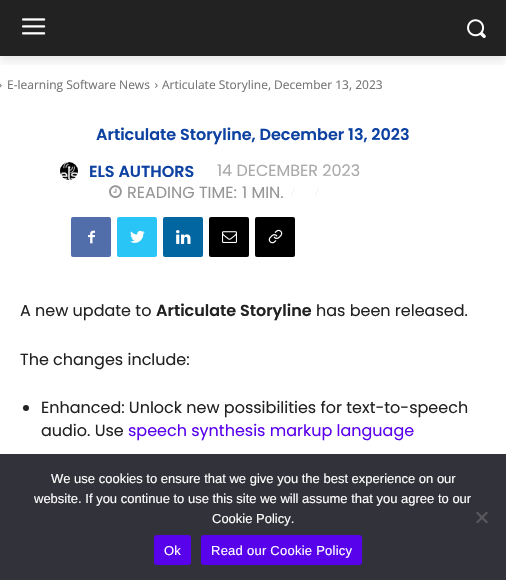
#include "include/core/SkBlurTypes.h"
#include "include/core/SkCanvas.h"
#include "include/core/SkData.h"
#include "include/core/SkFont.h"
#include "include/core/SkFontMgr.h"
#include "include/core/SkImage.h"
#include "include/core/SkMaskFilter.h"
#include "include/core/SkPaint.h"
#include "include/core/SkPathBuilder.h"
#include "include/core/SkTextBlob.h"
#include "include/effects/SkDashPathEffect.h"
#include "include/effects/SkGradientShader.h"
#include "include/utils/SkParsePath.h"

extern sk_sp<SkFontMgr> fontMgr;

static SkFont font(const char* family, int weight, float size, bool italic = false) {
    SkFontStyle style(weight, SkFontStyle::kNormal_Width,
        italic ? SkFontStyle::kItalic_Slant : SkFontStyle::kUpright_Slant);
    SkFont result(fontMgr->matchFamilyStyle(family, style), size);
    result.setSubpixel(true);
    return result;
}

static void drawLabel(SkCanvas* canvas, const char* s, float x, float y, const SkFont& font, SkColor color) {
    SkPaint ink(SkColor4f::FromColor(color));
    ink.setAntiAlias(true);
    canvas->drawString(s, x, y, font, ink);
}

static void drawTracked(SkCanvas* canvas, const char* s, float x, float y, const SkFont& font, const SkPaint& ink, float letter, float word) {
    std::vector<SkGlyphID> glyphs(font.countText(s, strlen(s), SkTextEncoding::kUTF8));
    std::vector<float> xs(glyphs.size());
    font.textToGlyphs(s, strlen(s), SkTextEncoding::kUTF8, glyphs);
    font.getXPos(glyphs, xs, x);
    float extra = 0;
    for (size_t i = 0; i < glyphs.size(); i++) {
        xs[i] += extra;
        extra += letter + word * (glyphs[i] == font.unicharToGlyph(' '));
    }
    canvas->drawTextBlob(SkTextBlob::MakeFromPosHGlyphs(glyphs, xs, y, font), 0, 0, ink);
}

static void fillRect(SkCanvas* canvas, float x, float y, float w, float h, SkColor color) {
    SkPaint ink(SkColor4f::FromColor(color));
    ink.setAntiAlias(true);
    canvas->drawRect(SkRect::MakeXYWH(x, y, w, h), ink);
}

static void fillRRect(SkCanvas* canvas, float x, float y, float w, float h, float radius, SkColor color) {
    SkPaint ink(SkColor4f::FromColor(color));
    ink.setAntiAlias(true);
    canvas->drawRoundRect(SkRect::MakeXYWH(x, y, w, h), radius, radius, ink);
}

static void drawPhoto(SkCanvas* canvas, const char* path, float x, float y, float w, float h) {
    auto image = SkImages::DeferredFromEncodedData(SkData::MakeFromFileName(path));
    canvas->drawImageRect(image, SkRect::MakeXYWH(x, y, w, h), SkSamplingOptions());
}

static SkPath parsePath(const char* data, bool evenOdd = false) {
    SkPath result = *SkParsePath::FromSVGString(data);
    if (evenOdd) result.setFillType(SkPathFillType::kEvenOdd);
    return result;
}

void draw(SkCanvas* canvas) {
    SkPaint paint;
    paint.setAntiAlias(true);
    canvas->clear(0xFFFFFFFF);
    fillRect(canvas, 0, 0, 506, 56, 0xFF222222);
    drawPhoto(canvas, "assets/img1.png", 22, 18, 24, 17);
    drawPhoto(canvas, "assets/img2.png", 467, 19, 19, 19);
    canvas->save();
    canvas->clipRect(SkRect::MakeXYWH(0, 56, 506, 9));
    paint.setColor(0x14000000);
    paint.setMaskFilter(SkMaskFilter::MakeBlur(kNormal_SkBlurStyle, 4));
    canvas->drawRect(SkRect::MakeXYWH(0, 6, 506, 56), paint);
    paint.setMaskFilter(nullptr);
    canvas->restore();
    drawPhoto(canvas, "assets/img3.png", 0, 83, 2, 5);
    SkFont font1 = font("Open Sans", 400, 12);
    drawLabel(canvas, "E-learning Software News", 7, 89, font1, 0xFF747474);
    drawPhoto(canvas, "assets/img4.png", 155, 83, 3, 5);
    drawLabel(canvas, "Articulate Storyline, December 13, 2023", 162, 89, font1, 0xFF747474);
    SkFont font2 = font("Poppins", 600, 16);
    drawLabel(canvas, "Articulate Storyline, December 13, 2023", 96, 140, font2, 0xFF0D42A2);
    drawPhoto(canvas, "assets/img5.png", 60, 162, 18, 18);
    drawLabel(canvas, "ELS AUTHORS", 89, 177, font2, 0xFF0D42A2);
    SkFont font3 = font("Poppins", 400, 16);
    drawLabel(canvas, "14 DECEMBER 2023", 217, 176, font3, 0xFFAAAAAA);
    drawPhoto(canvas, "assets/img6.png", 109, 185, 13, 14);
    drawLabel(canvas, "READING TIME:", 127, 198, font3, 0xFF969696);
    drawLabel(canvas, "1 MIN.", 242, 198, font3, 0xFF969696);
    paint.setColor(0xFFE6E6E6);
    canvas->drawPath(parsePath("M294.5 188L291 195.5H291.5L295 188ZM318.5 188L315 195.5H315.5L319 188Z"), paint);
    fillRRect(canvas, 71, 217, 40, 40, 2, 0xFF516EAB);
    drawPhoto(canvas, "assets/img7.png", 88, 230, 7, 14);
    fillRRect(canvas, 117, 217, 40, 40, 2, 0xFF29C5F6);
    drawPhoto(canvas, "assets/img8.png", 130, 230, 15, 13);
    fillRRect(canvas, 163, 217, 40, 40, 2, 0xFF0266A0);
    drawPhoto(canvas, "assets/img9.png", 176, 230, 15, 14);
    fillRRect(canvas, 209, 217, 40, 40, 2, 0xFF000000);
    drawPhoto(canvas, "assets/img10.png", 222, 231, 15, 12);
    fillRRect(canvas, 255, 217, 40, 40, 2, 0xFF000000);
    drawPhoto(canvas, "assets/img11.png", 268, 229, 15, 15);
    drawLabel(canvas, "A new update to", 20, 316, font3, 0xFF222222);
    drawLabel(canvas, "Articulate Storyline", 156, 316, font2, 0xFF222222);
    drawLabel(canvas, "has been released.", 316, 316, font3, 0xFF222222);
    drawLabel(canvas, "The changes include:", 20, 365, font3, 0xFF222222);
    paint.setColor(0xFF222222);
    canvas->drawCircle(26, 408, 3, paint);
    drawLabel(canvas, "Enhanced: Unlock new possibilities for text-to-speech", 41, 413, font3, 0xFF222222);
    drawLabel(canvas, "audio. Use", 41, 436, font3, 0xFF222222);
    drawLabel(canvas, "speech synthesis markup language", 128, 436, font3, 0xFF5A02ED);
    fillRect(canvas, 0, 454, 506, 126, 0xFF32323A);
    SkFont font4 = font("Liberation Sans", 400, 13);
    drawLabel(canvas, "We use cookies to ensure that we give you the best experience on our", 51, 483, font4, 0xFFFFFFFF);
    drawLabel(canvas, "website. If you continue to use this site we will assume that you agree to our", 34, 503, font4, 0xFFFFFFFF);
    drawLabel(canvas, "Cookie Policy.", 212, 523, font4, 0xFFFFFFFF);
    paint.setColor(0xFF59595D);
    canvas->drawPath(parsePath("M486.5 511.5L488 513L477.5 523.5L476 522Z"), paint);
    canvas->drawPath(parsePath("M476 513L477.5 511.5L488 522L486.5 523.5Z"), paint);
    fillRRect(canvas, 154, 535, 37, 30, 3, 0xFF5702EA);
    paint.setColor(0xFFFFFFFF);
    drawTracked(canvas, "Ok", 164, 555, font4, paint, 0.25f, 0);
    fillRRect(canvas, 201, 535, 161, 30, 3, 0xFF5702EA);
    drawTracked(canvas, "Read our Cookie Policy", 211, 555, font4, paint, 0.25f, 0);
}
